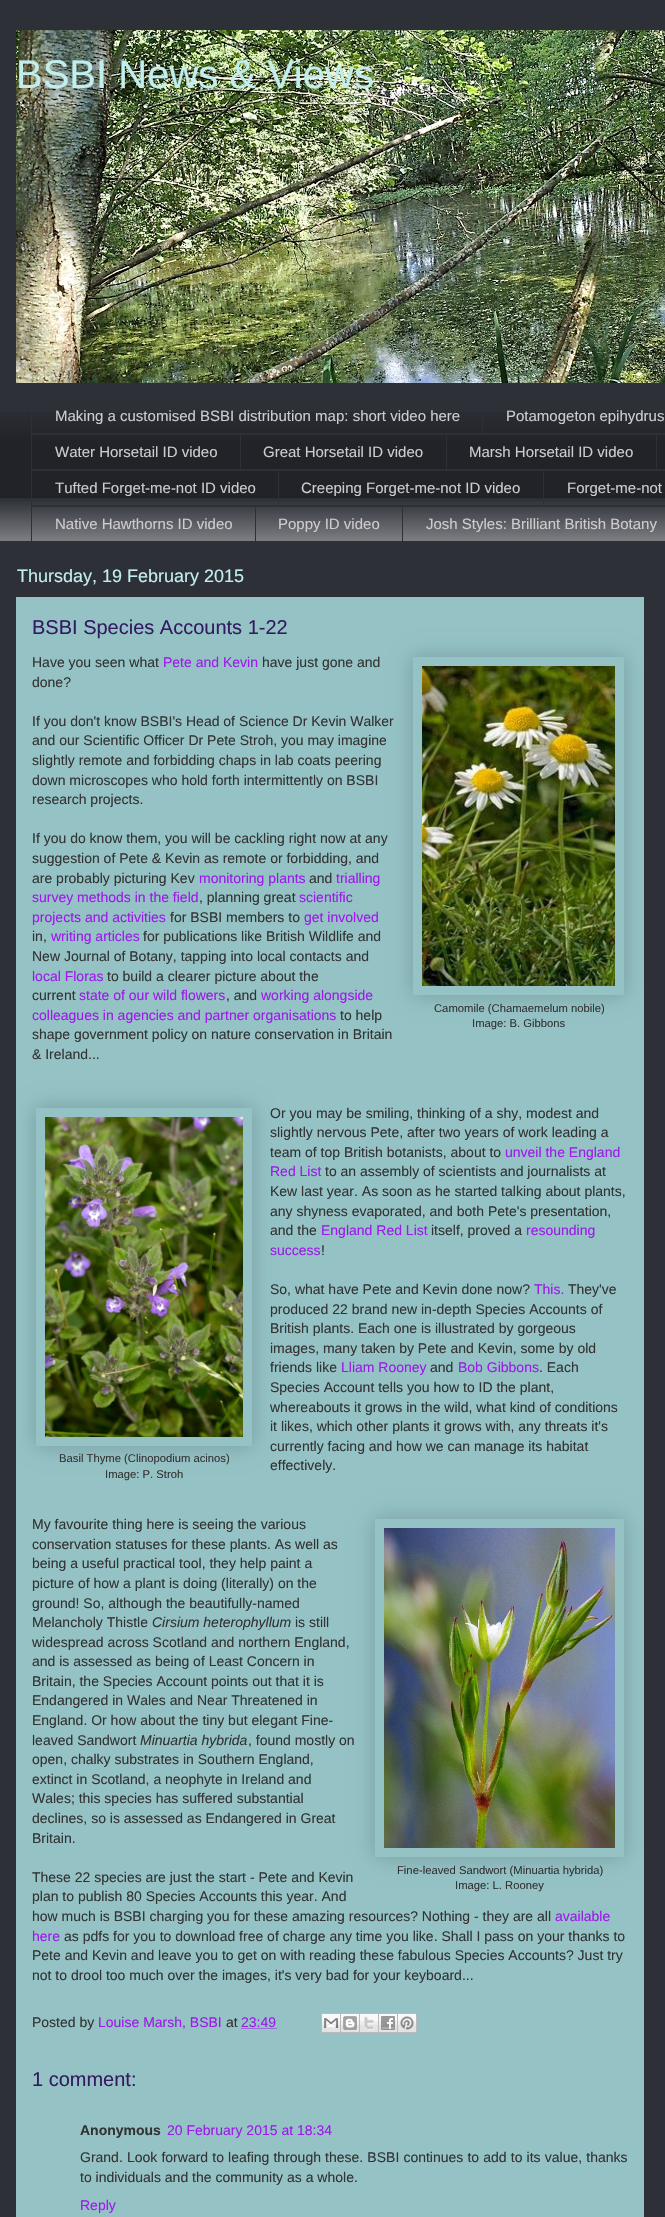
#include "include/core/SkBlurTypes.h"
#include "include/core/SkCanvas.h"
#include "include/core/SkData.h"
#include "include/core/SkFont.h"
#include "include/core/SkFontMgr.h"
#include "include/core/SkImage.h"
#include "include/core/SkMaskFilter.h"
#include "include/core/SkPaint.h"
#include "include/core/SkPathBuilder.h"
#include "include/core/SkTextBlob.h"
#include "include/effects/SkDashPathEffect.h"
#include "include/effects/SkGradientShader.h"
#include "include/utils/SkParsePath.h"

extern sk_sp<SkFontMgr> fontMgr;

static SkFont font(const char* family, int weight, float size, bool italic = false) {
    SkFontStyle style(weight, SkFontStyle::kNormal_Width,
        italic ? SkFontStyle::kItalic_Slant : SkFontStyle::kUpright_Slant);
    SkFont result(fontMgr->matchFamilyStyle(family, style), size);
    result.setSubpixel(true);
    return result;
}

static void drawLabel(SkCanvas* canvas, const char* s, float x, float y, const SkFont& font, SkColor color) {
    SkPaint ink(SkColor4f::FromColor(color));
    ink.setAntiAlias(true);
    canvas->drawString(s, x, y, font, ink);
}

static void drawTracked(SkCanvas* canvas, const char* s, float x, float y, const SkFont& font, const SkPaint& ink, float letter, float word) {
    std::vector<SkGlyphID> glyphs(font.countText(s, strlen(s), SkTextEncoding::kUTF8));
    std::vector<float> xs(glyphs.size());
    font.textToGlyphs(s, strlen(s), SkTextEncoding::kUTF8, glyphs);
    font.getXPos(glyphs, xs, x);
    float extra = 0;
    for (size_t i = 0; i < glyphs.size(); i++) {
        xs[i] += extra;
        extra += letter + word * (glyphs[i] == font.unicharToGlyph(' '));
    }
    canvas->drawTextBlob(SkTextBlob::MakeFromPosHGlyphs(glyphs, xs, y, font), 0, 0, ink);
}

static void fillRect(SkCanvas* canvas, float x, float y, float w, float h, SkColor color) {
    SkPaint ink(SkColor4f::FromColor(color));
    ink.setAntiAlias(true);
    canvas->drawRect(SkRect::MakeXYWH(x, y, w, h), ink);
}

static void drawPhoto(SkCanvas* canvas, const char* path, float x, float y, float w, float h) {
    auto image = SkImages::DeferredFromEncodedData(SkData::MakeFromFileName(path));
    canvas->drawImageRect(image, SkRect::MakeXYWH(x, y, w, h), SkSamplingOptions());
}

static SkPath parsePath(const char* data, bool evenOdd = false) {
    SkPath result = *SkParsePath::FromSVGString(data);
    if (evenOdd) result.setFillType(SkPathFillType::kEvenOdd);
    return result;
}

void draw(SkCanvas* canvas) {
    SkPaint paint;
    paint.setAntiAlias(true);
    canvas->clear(0xFF2D3037);
    drawPhoto(canvas, "assets/img1.png", 16, 30, 649, 353);
    SkFont font1 = font("Liberation Sans", 400, 40);
    drawLabel(canvas, "BSBI News & Views", 16, 88, font1, 0xFFC2EEEE);
    drawPhoto(canvas, "assets/img2.png", 0, 412, 665, 129);
    fillRect(canvas, 31, 433, 634, 1, 0xFF2D3037);
    fillRect(canvas, 31, 412, 1, 22, 0xFF2D3037);
    SkFont font2 = font("Liberation Sans", 400, 15);
    drawLabel(canvas, "Making a customised BSBI distribution map: short video here", 55, 421, font2, 0xFFCCCCCC);
    fillRect(canvas, 482, 412, 1, 22, 0xFF2D3037);
    drawLabel(canvas, "Potamogeton epihydrus", 506, 421, font2, 0xFFCCCCCC);
    fillRect(canvas, 31, 434, 634, 1, 0xFF2D3037);
    fillRect(canvas, 31, 469, 634, 1, 0xFF2D3037);
    fillRect(canvas, 31, 434, 1, 36, 0xFF2D3037);
    drawLabel(canvas, "Water Horsetail ID video", 55, 457, font2, 0xFFCCCCCC);
    fillRect(canvas, 240, 434, 1, 36, 0xFF2D3037);
    drawLabel(canvas, "Great Horsetail ID video", 263, 457, font2, 0xFFCCCCCC);
    fillRect(canvas, 446, 434, 1, 36, 0xFF2D3037);
    drawLabel(canvas, "Marsh Horsetail ID video", 469, 457, font2, 0xFFCCCCCC);
    fillRect(canvas, 656, 434, 1, 36, 0xFF2D3037);
    fillRect(canvas, 31, 470, 634, 1, 0xFF2D3037);
    fillRect(canvas, 31, 505, 634, 1, 0xFF2D3037);
    fillRect(canvas, 31, 470, 1, 36, 0xFF2D3037);
    drawLabel(canvas, "Tufted Forget-me-not ID video", 55, 493, font2, 0xFFCCCCCC);
    fillRect(canvas, 278, 470, 1, 36, 0xFF2D3037);
    drawLabel(canvas, "Creeping Forget-me-not ID video", 301, 493, font2, 0xFFCCCCCC);
    fillRect(canvas, 543, 470, 1, 36, 0xFF2D3037);
    drawLabel(canvas, "Forget-me-not", 567, 493, font2, 0xFFCCCCCC);
    fillRect(canvas, 31, 506, 371, 1, 0xFF2D3037);
    fillRect(canvas, 31, 506, 1, 36, 0xFF2D3037);
    drawLabel(canvas, "Native Hawthorns ID video", 55, 529, font2, 0xFFCCCCCC);
    fillRect(canvas, 255, 506, 1, 36, 0xFF2D3037);
    drawLabel(canvas, "Poppy ID video", 278, 529, font2, 0xFFCCCCCC);
    paint.setStroke(true);
    paint.setStrokeWidth(1);
    paint.setColor(0xFF2D3037);
    canvas->drawRect(SkRect::MakeXYWH(402.5f, 506.5f, 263, 35), paint);
    drawLabel(canvas, "Josh Styles: Brilliant British Botany", 426, 529, font2, 0xFFCCCCCC);
    fillRect(canvas, 16, 597, 628, 1620, 0xFF94C2C5);
    SkFont font3 = font("Liberation Sans", 400, 18);
    drawLabel(canvas, "Thursday, 19 February 2015", 17, 582, font3, 0xFFC2EEEE);
    SkFont font4 = font("Liberation Sans", 400, 20);
    drawLabel(canvas, "BSBI Species Accounts 1-22", 32, 634, font4, 0xFF331B61);
    SkFont font5 = font("Liberation Sans", 400, 14);
    drawLabel(canvas, "Have you seen what", 32, 667, font5, 0xFF333333);
    drawLabel(canvas, "Pete and Kevin", 163, 667, font5, 0xFF9E19EB);
    drawLabel(canvas, "have just gone and", 262, 667, font5, 0xFF333333);
    drawLabel(canvas, "done?", 32, 687, font5, 0xFF333333);
    drawLabel(canvas, "If you don't know BSBI's Head of Science Dr Kevin Walker", 32, 726, font5, 0xFF333333);
    drawLabel(canvas, "and our Scientific Officer Dr Pete Stroh, you may imagine", 32, 745, font5, 0xFF333333);
    drawLabel(canvas, "slightly remote and forbidding chaps in lab coats peering", 32, 765, font5, 0xFF333333);
    drawLabel(canvas, "down microscopes who hold forth intermittently on BSBI", 32, 785, font5, 0xFF333333);
    drawLabel(canvas, "research projects.", 32, 804, font5, 0xFF333333);
    drawLabel(canvas, "If you do know them, you will be cackling right now at any", 32, 843, font5, 0xFF333333);
    drawLabel(canvas, "suggestion of Pete & Kevin as remote or forbidding, and", 32, 863, font5, 0xFF333333);
    drawLabel(canvas, "are probably picturing Kev", 32, 883, font5, 0xFF333333);
    drawLabel(canvas, "monitoring plants", 199, 883, font5, 0xFF9E19EB);
    drawLabel(canvas, "and", 309, 883, font5, 0xFF333333);
    drawLabel(canvas, "trialling", 336, 883, font5, 0xFF9E19EB);
    drawLabel(canvas, "survey methods in the field", 32, 902, font5, 0xFF9E19EB);
    drawLabel(canvas, ", planning great", 199, 902, font5, 0xFF333333);
    drawLabel(canvas, "scientific", 299, 902, font5, 0xFF9E19EB);
    drawLabel(canvas, "projects and activities", 32, 922, font5, 0xFF9E19EB);
    drawLabel(canvas, "for BSBI members to", 170, 922, font5, 0xFF333333);
    drawLabel(canvas, "get involved", 304, 922, font5, 0xFF9E19EB);
    drawLabel(canvas, "in,", 32, 941, font5, 0xFF333333);
    drawLabel(canvas, "writing articles", 51, 941, font5, 0xFF9E19EB);
    drawLabel(canvas, "for publications like British Wildlife and", 143, 941, font5, 0xFF333333);
    drawLabel(canvas, "New Journal of Botany, tapping into local contacts and", 32, 961, font5, 0xFF333333);
    drawLabel(canvas, "local Floras", 32, 981, font5, 0xFF9E19EB);
    drawLabel(canvas, "to build a clearer picture about the", 107, 981, font5, 0xFF333333);
    drawLabel(canvas, "current", 32, 1000, font5, 0xFF333333);
    drawLabel(canvas, "state of our wild flowers", 79, 1000, font5, 0xFF9E19EB);
    drawLabel(canvas, ", and", 226, 1000, font5, 0xFF333333);
    drawLabel(canvas, "working alongside", 261, 1000, font5, 0xFF9E19EB);
    drawLabel(canvas, "colleagues in agencies and partner organisations", 32, 1020, font5, 0xFF9E19EB);
    drawLabel(canvas, "to help", 340, 1020, font5, 0xFF333333);
    canvas->save();
    canvas->clipPath(parsePath("M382 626H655V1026H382ZM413 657H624V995H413Z", true), true);
    paint.setStroke(false);
    paint.setColor(0x33000000);
    paint.setMaskFilter(SkMaskFilter::MakeBlur(kNormal_SkBlurStyle, 10));
    canvas->drawRect(SkRect::MakeXYWH(413, 657, 211, 338), paint);
    paint.setMaskFilter(nullptr);
    canvas->restore();
    drawPhoto(canvas, "assets/img3.png", 422, 666, 193, 320);
    SkFont font6 = font("Liberation Sans", 400, 11.25f);
    drawLabel(canvas, "Camomile (Chamaemelum nobile)", 434, 1012, font6, 0xFF333333);
    drawLabel(canvas, "Image: B. Gibbons", 472, 1027, font6, 0xFF333333);
    drawLabel(canvas, "shape government policy on nature conservation in Britain", 32, 1039, font5, 0xFF333333);
    drawLabel(canvas, "& Ireland...", 32, 1059, font5, 0xFF333333);
    drawLabel(canvas, "Or you may be smiling, thinking of a shy, modest and", 270, 1118, font5, 0xFF333333);
    drawLabel(canvas, "slightly nervous Pete, after two years of work leading a", 270, 1137, font5, 0xFF333333);
    drawLabel(canvas, "team of top British botanists, about to", 270, 1157, font5, 0xFF333333);
    drawLabel(canvas, "unveil the England", 505, 1157, font5, 0xFF9E19EB);
    drawLabel(canvas, "Red List", 270, 1176, font5, 0xFF9E19EB);
    drawLabel(canvas, "to an assembly of scientists and journalists at", 325, 1176, font5, 0xFF333333);
    drawLabel(canvas, "Kew last year. As soon as he started talking about plants,", 270, 1196, font5, 0xFF333333);
    drawLabel(canvas, "any shyness evaporated, and both Pete's presentation,", 270, 1216, font5, 0xFF333333);
    drawLabel(canvas, "and the", 270, 1235, font5, 0xFF333333);
    drawLabel(canvas, "England Red List", 321, 1235, font5, 0xFF9E19EB);
    drawLabel(canvas, "itself, proved a", 431, 1235, font5, 0xFF333333);
    drawLabel(canvas, "resounding", 526, 1235, font5, 0xFF9E19EB);
    drawLabel(canvas, "success", 270, 1255, font5, 0xFF9E19EB);
    drawLabel(canvas, "!", 321, 1255, font5, 0xFF333333);
    drawLabel(canvas, "So, what have Pete and Kevin done now?", 270, 1294, font5, 0xFF333333);
    drawLabel(canvas, "This.", 534, 1294, font5, 0xFF9E19EB);
    drawLabel(canvas, "They've", 568, 1294, font5, 0xFF333333);
    drawLabel(canvas, "produced 22 brand new in-depth Species Accounts of", 270, 1314, font5, 0xFF333333);
    drawLabel(canvas, "British plants. Each one is illustrated by gorgeous", 270, 1333, font5, 0xFF333333);
    drawLabel(canvas, "images, many taken by Pete and Kevin, some by old", 270, 1353, font5, 0xFF333333);
    drawLabel(canvas, "friends like", 270, 1372, font5, 0xFF333333);
    drawLabel(canvas, "Lliam Rooney", 341, 1372, font5, 0xFF9E19EB);
    drawLabel(canvas, "and", 430, 1372, font5, 0xFF333333);
    drawLabel(canvas, "Bob Gibbons", 458, 1372, font5, 0xFF9E19EB);
    drawLabel(canvas, ". Each", 539, 1372, font5, 0xFF333333);
    drawLabel(canvas, "Species Account tells you how to ID the plant,", 270, 1392, font5, 0xFF333333);
    drawLabel(canvas, "whereabouts it grows in the wild, what kind of conditions", 270, 1412, font5, 0xFF333333);
    drawLabel(canvas, "it likes, which other plants it grows with, any threats it's", 270, 1431, font5, 0xFF333333);
    drawLabel(canvas, "currently facing and how we can manage its habitat", 270, 1451, font5, 0xFF333333);
    canvas->save();
    canvas->clipPath(parsePath("M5 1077H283V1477H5ZM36 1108H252V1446H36Z", true), true);
    paint.setMaskFilter(SkMaskFilter::MakeBlur(kNormal_SkBlurStyle, 10));
    canvas->drawRect(SkRect::MakeXYWH(36, 1108, 216, 338), paint);
    paint.setMaskFilter(nullptr);
    canvas->restore();
    drawPhoto(canvas, "assets/img4.png", 45, 1117, 198, 320);
    drawLabel(canvas, "Basil Thyme (Clinopodium acinos)", 59, 1462, font6, 0xFF333333);
    drawLabel(canvas, "Image: P. Stroh", 105, 1478, font6, 0xFF333333);
    drawLabel(canvas, "effectively.", 270, 1470, font5, 0xFF333333);
    drawLabel(canvas, "My favourite thing here is seeing the various", 32, 1529, font5, 0xFF333333);
    drawLabel(canvas, "conservation statuses for these plants. As well as", 32, 1549, font5, 0xFF333333);
    drawLabel(canvas, "being a useful practical tool, they help paint a", 32, 1568, font5, 0xFF333333);
    drawLabel(canvas, "picture of how a plant is doing (literally) on the", 32, 1588, font5, 0xFF333333);
    drawLabel(canvas, "ground! So, although the beautifully-named", 32, 1608, font5, 0xFF333333);
    drawLabel(canvas, "Melancholy Thistle", 32, 1627, font5, 0xFF333333);
    SkFont font7 = font("Liberation Sans", 400, 14, true);
    drawLabel(canvas, "Cirsium heterophyllum", 152, 1627, font7, 0xFF333333);
    drawLabel(canvas, "is still", 295, 1627, font5, 0xFF333333);
    drawLabel(canvas, "widespread across Scotland and northern England,", 32, 1647, font5, 0xFF333333);
    drawLabel(canvas, "and is assessed as being of Least Concern in", 32, 1666, font5, 0xFF333333);
    drawLabel(canvas, "Britain, the Species Account points out that it is", 32, 1686, font5, 0xFF333333);
    drawLabel(canvas, "Endangered in Wales and Near Threatened in", 32, 1705, font5, 0xFF333333);
    drawLabel(canvas, "England. Or how about the tiny but elegant Fine-", 32, 1725, font5, 0xFF333333);
    drawLabel(canvas, "leaved Sandwort", 32, 1745, font5, 0xFF333333);
    drawLabel(canvas, "Minuartia hybrida", 140, 1745, font7, 0xFF333333);
    drawLabel(canvas, ", found mostly on", 248, 1745, font5, 0xFF333333);
    drawLabel(canvas, "open, chalky substrates in Southern England,", 32, 1764, font5, 0xFF333333);
    drawLabel(canvas, "extinct in Scotland, a neophyte in Ireland and", 32, 1784, font5, 0xFF333333);
    drawLabel(canvas, "Wales; this species has suffered substantial", 32, 1803, font5, 0xFF333333);
    drawLabel(canvas, "declines, so is assessed as Endangered in Great", 32, 1823, font5, 0xFF333333);
    drawLabel(canvas, "Britain.", 32, 1843, font5, 0xFF333333);
    drawLabel(canvas, "These 22 species are just the start - Pete and Kevin", 32, 1882, font5, 0xFF333333);
    canvas->save();
    canvas->clipPath(parsePath("M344 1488H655V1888H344ZM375 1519H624V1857H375Z", true), true);
    paint.setMaskFilter(SkMaskFilter::MakeBlur(kNormal_SkBlurStyle, 10));
    canvas->drawRect(SkRect::MakeXYWH(375, 1519, 249, 338), paint);
    paint.setMaskFilter(nullptr);
    canvas->restore();
    drawPhoto(canvas, "assets/img5.png", 384, 1528, 231, 320);
    drawLabel(canvas, "Fine-leaved Sandwort (Minuartia hybrida)", 397, 1874, font6, 0xFF333333);
    drawLabel(canvas, "Image: L. Rooney", 455, 1889, font6, 0xFF333333);
    drawLabel(canvas, "plan to publish 80 Species Accounts this year. And", 32, 1901, font5, 0xFF333333);
    drawLabel(canvas, "how much is BSBI charging you for these amazing resources? Nothing - they are all", 32, 1921, font5, 0xFF333333);
    drawLabel(canvas, "available", 555, 1921, font5, 0xFF9E19EB);
    drawLabel(canvas, "here", 32, 1941, font5, 0xFF9E19EB);
    drawLabel(canvas, "as pdfs for you to download free of charge any time you like. Shall I pass on your thanks to", 64, 1941, font5, 0xFF333333);
    drawLabel(canvas, "Pete and Kevin and leave you to get on with reading these fabulous Species Accounts? Just try", 32, 1960, font5, 0xFF333333);
    drawLabel(canvas, "not to drool too much over the images, it's very bad for your keyboard...", 32, 1980, font5, 0xFF333333);
    drawLabel(canvas, "Posted by", 32, 2027, font5, 0xFF333333);
    drawLabel(canvas, "Louise Marsh, BSBI", 98, 2027, font5, 0xFF9E19EB);
    drawLabel(canvas, "at", 226, 2027, font5, 0xFF333333);
    drawLabel(canvas, "23:49", 241, 2027, font5, 0xFF9E19EB);
    paint.setStroke(true);
    paint.setColor(0xFF9E19EB);
    paint.setPathEffect(SkDashPathEffect::Make({{1, 1}}, 0));
    canvas->drawPath(parsePath("M241.5 2028.5H276.5"), paint);
    paint.setPathEffect(nullptr);
    drawPhoto(canvas, "assets/img6.png", 321, 2013, 20, 20);
    drawPhoto(canvas, "assets/img7.png", 341, 2013, 19, 20);
    drawPhoto(canvas, "assets/img8.png", 360, 2013, 19, 20);
    drawPhoto(canvas, "assets/img9.png", 379, 2013, 19, 20);
    drawPhoto(canvas, "assets/img10.png", 398, 2013, 19, 20);
    drawLabel(canvas, "1 comment:", 32, 2086, font4, 0xFF331B61);
    SkFont font8 = font("Liberation Sans", 700, 14);
    drawLabel(canvas, "Anonymous", 80, 2135, font8, 0xFF333333);
    drawLabel(canvas, "20 February 2015 at 18:34", 167, 2135, font5, 0xFF9E19EB);
    paint.setStroke(false);
    paint.setColor(0xFF333333);
    drawTracked(canvas, "Grand. Look forward to leafing through these. BSBI continues to add to its value, thanks", 80, 2162, font5, paint, 0, 0.25f);
    drawLabel(canvas, "to individuals and the community as a whole.", 80, 2182, font5, 0xFF333333);
    drawLabel(canvas, "Reply", 80, 2210, font5, 0xFF9E19EB);
}
